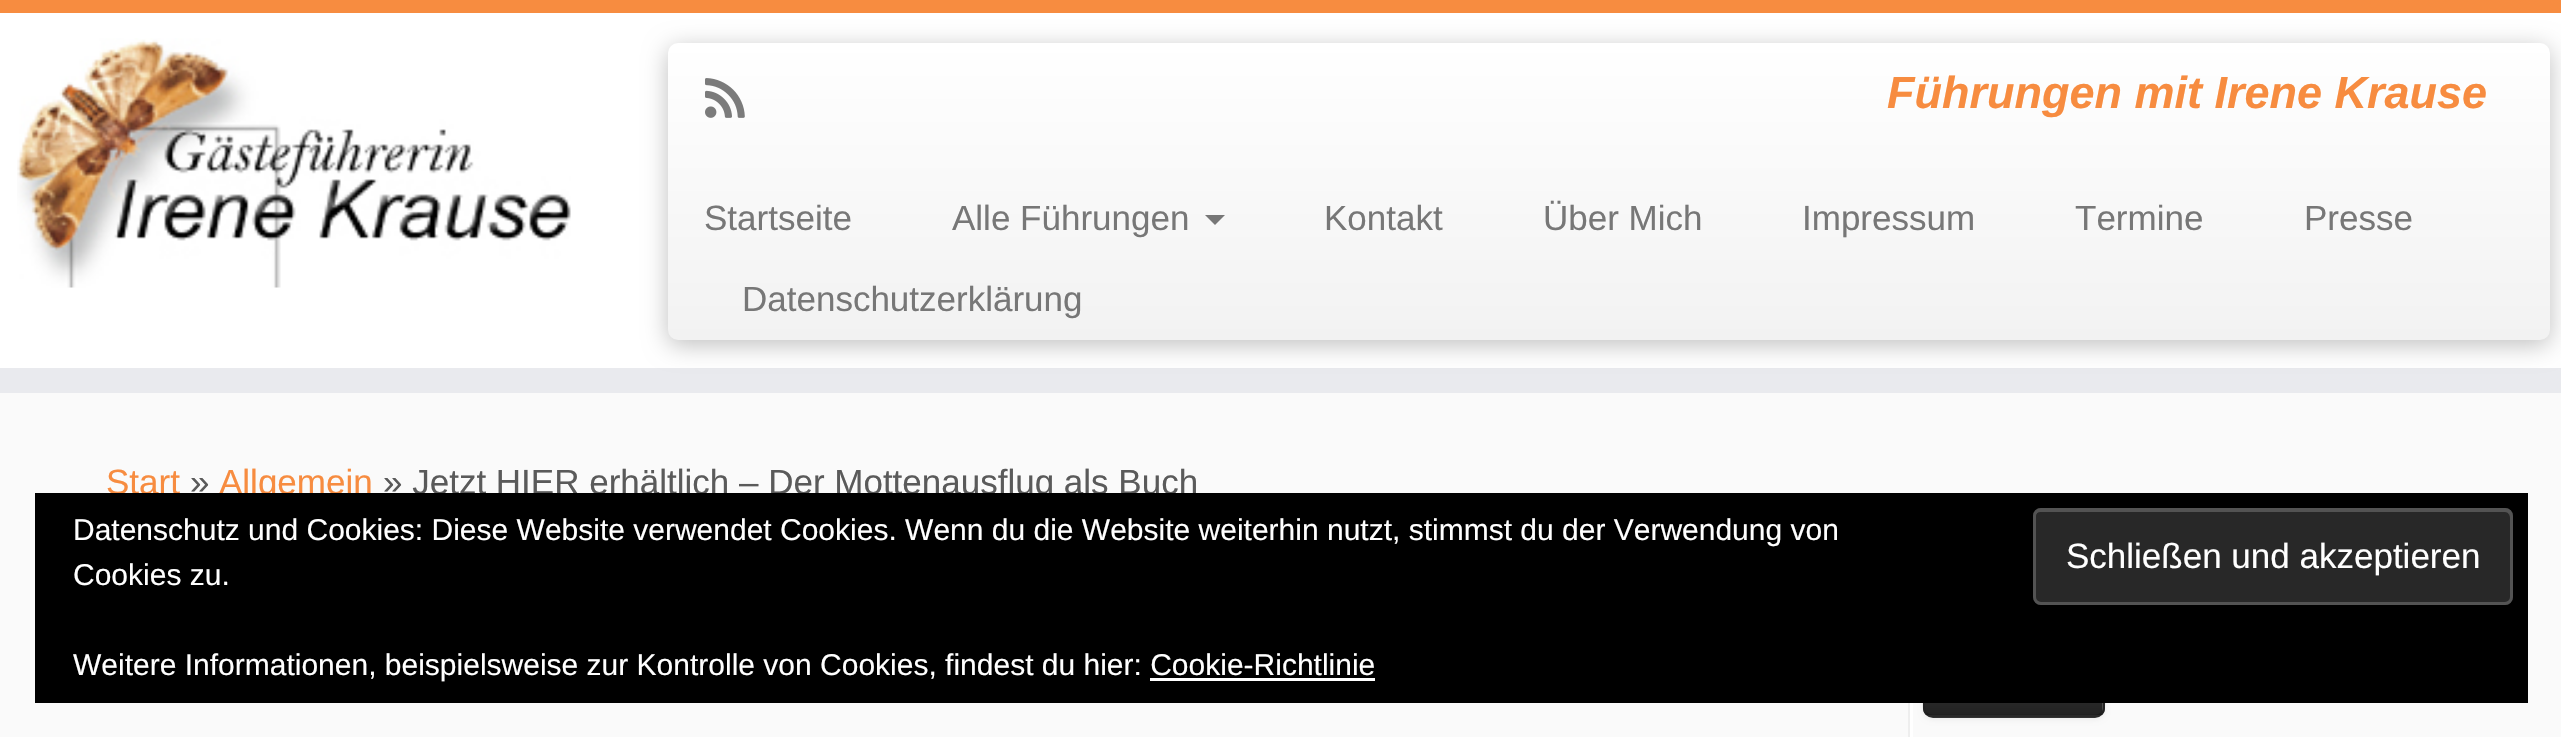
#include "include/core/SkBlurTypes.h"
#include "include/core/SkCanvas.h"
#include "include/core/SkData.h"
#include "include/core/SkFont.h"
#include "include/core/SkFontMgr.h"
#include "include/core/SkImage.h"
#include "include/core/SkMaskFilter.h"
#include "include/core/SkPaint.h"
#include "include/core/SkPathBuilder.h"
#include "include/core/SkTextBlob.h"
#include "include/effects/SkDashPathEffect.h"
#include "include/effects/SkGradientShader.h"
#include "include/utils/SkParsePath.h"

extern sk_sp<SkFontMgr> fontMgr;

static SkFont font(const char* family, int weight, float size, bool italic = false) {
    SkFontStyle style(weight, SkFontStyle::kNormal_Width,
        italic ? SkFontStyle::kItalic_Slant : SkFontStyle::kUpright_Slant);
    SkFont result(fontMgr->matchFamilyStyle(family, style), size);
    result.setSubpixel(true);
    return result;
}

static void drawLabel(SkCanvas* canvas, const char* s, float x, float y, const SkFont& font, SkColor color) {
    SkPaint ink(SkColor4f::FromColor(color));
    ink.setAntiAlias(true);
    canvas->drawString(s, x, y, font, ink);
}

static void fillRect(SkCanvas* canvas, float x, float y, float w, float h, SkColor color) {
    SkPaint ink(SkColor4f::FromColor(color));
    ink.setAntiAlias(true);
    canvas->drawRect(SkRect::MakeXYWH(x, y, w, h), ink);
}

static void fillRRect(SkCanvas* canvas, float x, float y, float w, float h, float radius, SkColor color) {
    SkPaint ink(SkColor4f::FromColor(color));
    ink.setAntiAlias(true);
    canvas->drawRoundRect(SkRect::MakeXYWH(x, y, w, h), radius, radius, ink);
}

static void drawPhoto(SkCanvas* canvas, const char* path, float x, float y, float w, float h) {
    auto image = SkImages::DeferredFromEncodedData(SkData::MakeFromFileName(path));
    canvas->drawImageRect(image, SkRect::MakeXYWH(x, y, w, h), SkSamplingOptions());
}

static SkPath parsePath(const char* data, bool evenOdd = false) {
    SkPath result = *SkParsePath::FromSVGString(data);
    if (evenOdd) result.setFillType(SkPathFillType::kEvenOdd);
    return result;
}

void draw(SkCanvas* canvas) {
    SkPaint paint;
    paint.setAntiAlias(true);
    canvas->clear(0xFFFAFAFA);
    fillRect(canvas, 0, 13, 2561, 355, 0xFFFFFFFF);
    fillRect(canvas, 0, 0, 2561, 13, 0xFFF78C40);
    fillRect(canvas, 0, 368, 2561, 25, 0xFFE9EAEE);
    drawPhoto(canvas, "assets/img1.png", 17, 38, 554, 250);
    paint.setColor(0x40000000);
    paint.setMaskFilter(SkMaskFilter::MakeBlur(kNormal_SkBlurStyle, 12.5f));
    canvas->drawRoundRect(SkRect::MakeXYWH(668, 48, 1882, 297), 10, 10, paint);
    paint.setMaskFilter(nullptr);
    {
        const SkColor colors[] = {0xFFFFFFFF, 0xFFF2F2F2};
        const float stops[] = {0, 1};
        const SkPoint ends[] = {{1609, 42}, {1609, 340}};
        paint.setShader(SkGradientShader::MakeLinear(ends, colors, stops, 2, SkTileMode::kClamp));
        paint.setAlpha(255);
    }
    canvas->drawRoundRect(SkRect::MakeXYWH(668, 43, 1882, 297), 10, 10, paint);
    drawPhoto(canvas, "assets/img2.png", 705, 78, 40, 40);
    SkFont font1 = font("Liberation Sans", 700, 45, true);
    drawLabel(canvas, "Führungen mit Irene Krause", 1887, 108, font1, 0xFFF78C40);
    SkFont font2 = font("Liberation Sans", 400, 35);
    drawLabel(canvas, "Startseite", 704, 230, font2, 0xFF777777);
    drawLabel(canvas, "Alle Führungen", 952, 230, font2, 0xFF777777);
    paint.setShader(nullptr);
    paint.setColor(0xFF777777);
    canvas->drawPath(parsePath("M1205 215H1225L1215 225Z"), paint);
    drawLabel(canvas, "Kontakt", 1324, 230, font2, 0xFF777777);
    drawLabel(canvas, "Über Mich", 1543, 230, font2, 0xFF777777);
    drawLabel(canvas, "Impressum", 1802, 230, font2, 0xFF777777);
    drawLabel(canvas, "Termine", 2075, 230, font2, 0xFF777777);
    drawLabel(canvas, "Presse", 2304, 230, font2, 0xFF777777);
    drawLabel(canvas, "Datenschutzerklärung", 742, 311, font2, 0xFF777777);
    drawLabel(canvas, "Start", 106, 494, font2, 0xFFF78C40);
    drawLabel(canvas, "»", 190, 494, font2, 0xFF5A5A5A);
    drawLabel(canvas, "Allgemein", 219, 494, font2, 0xFFF78C40);
    drawLabel(canvas, "» Jetzt HIER erhältlich – Der Mottenausflug als Buch", 383, 494, font2, 0xFF5A5A5A);
    fillRect(canvas, 1908, 703, 2, 34, 0xFFEEEEEE);
    fillRect(canvas, 1910, 703, 3, 34, 0xFFFFFFFF);
    paint.setColor(0x0D000000);
    paint.setMaskFilter(SkMaskFilter::MakeBlur(kNormal_SkBlurStyle, 2.5f));
    canvas->drawRoundRect(SkRect::MakeXYWH(1923, 645, 182, 75), 10, 10, paint);
    paint.setMaskFilter(nullptr);
    fillRRect(canvas, 1923, 643, 182, 75, 10, 0xFF363636);
    canvas->save();
    canvas->clipPath(parsePath("M1933 643H2095C2100.5 643 2105 647.5 2105 653V708C2105 713.5 2100.5 718 2095 718H1933C1927.5 718 1923 713.5 1923 708V653C1923 647.5 1927.5 643 1933 643Z"), true);
    {
        const SkColor colors[] = {0xFF444444, 0xFF222222};
        const float stops[] = {0, 1};
        const SkPoint ends[] = {{2014, 645}, {2014, 715}};
        paint.setShader(SkGradientShader::MakeLinear(ends, colors, stops, 2, SkTileMode::kClamp));
        paint.setAlpha(255);
    }
    canvas->drawRect(SkRect::MakeXYWH(1923, 703, 182, 12), paint);
    canvas->restore();
    paint.setShader(nullptr);
    paint.setColor(0x33FFFFFF);
    canvas->drawPath(parsePath("M1932 648H2095C2104 648 2102 659 2102 664V711C2103 710 2103 708 2103 707V653C2103 649 2099 645 2095 645H1933C1929 645 1925 649 1925 653V655C1925 651 1928 648 1932 648Z"), paint);
    paint.setStroke(true);
    paint.setStrokeWidth(2.5f);
    paint.setColor(0x40000000);
    canvas->drawPath(parsePath("M2101 713.5C2099.5 715.5 2097.5 716 2095 716H1932.5C1930 716 1928 715.5 1926.5 713.5"), paint);
    paint.setColor(0x1A000000);
    canvas->drawPath(parsePath("M1926.5 713.5C1922.5 710 1924 703 1924 698.5V680C1924 639 1917.5 644 1959.5 644H2068C2110 644 2104 639 2104 680V698.5C2104 703 2105 710 2101 713.5"), paint);
    fillRect(canvas, 35, 493, 2493, 210, 0xFF000000);
    SkFont font3 = font("Liberation Sans", 400, 30);
    drawLabel(canvas, "Datenschutz und Cookies: Diese Website verwendet Cookies. Wenn du die Website weiterhin nutzt, stimmst du der Verwendung von", 73, 540, font3, 0xFFFFFFFF);
    drawLabel(canvas, "Cookies zu.", 73, 585, font3, 0xFFFFFFFF);
    fillRRect(canvas, 2033, 508, 480, 97, 8, 0xFF282828);
    paint.setStroke(false);
    paint.setColor(0xFF535353);
    canvas->drawPath(parsePath("M2040 512H2505C2508 512 2510 515 2510 518C2510 514 2510 510 2505 510H2040C2035 510 2035 514 2035 518C2035 515 2037 512 2040 512Z"), paint);
    paint.setStroke(true);
    paint.setStrokeWidth(3);
    canvas->drawRoundRect(SkRect::MakeXYWH(2034.5f, 509.5f, 477, 94), 6.5f, 6.5f, paint);
    drawLabel(canvas, "Schließen und akzeptieren", 2066, 568, font2, 0xFFFFFFFF);
    drawLabel(canvas, "Weitere Informationen, beispielsweise zur Kontrolle von Cookies, findest du hier: Cookie-Richtlinie", 73, 675, font3, 0xFFFFFFFF);
    fillRect(canvas, 1150, 678, 225, 3, 0xFFFFFFFF);
}
